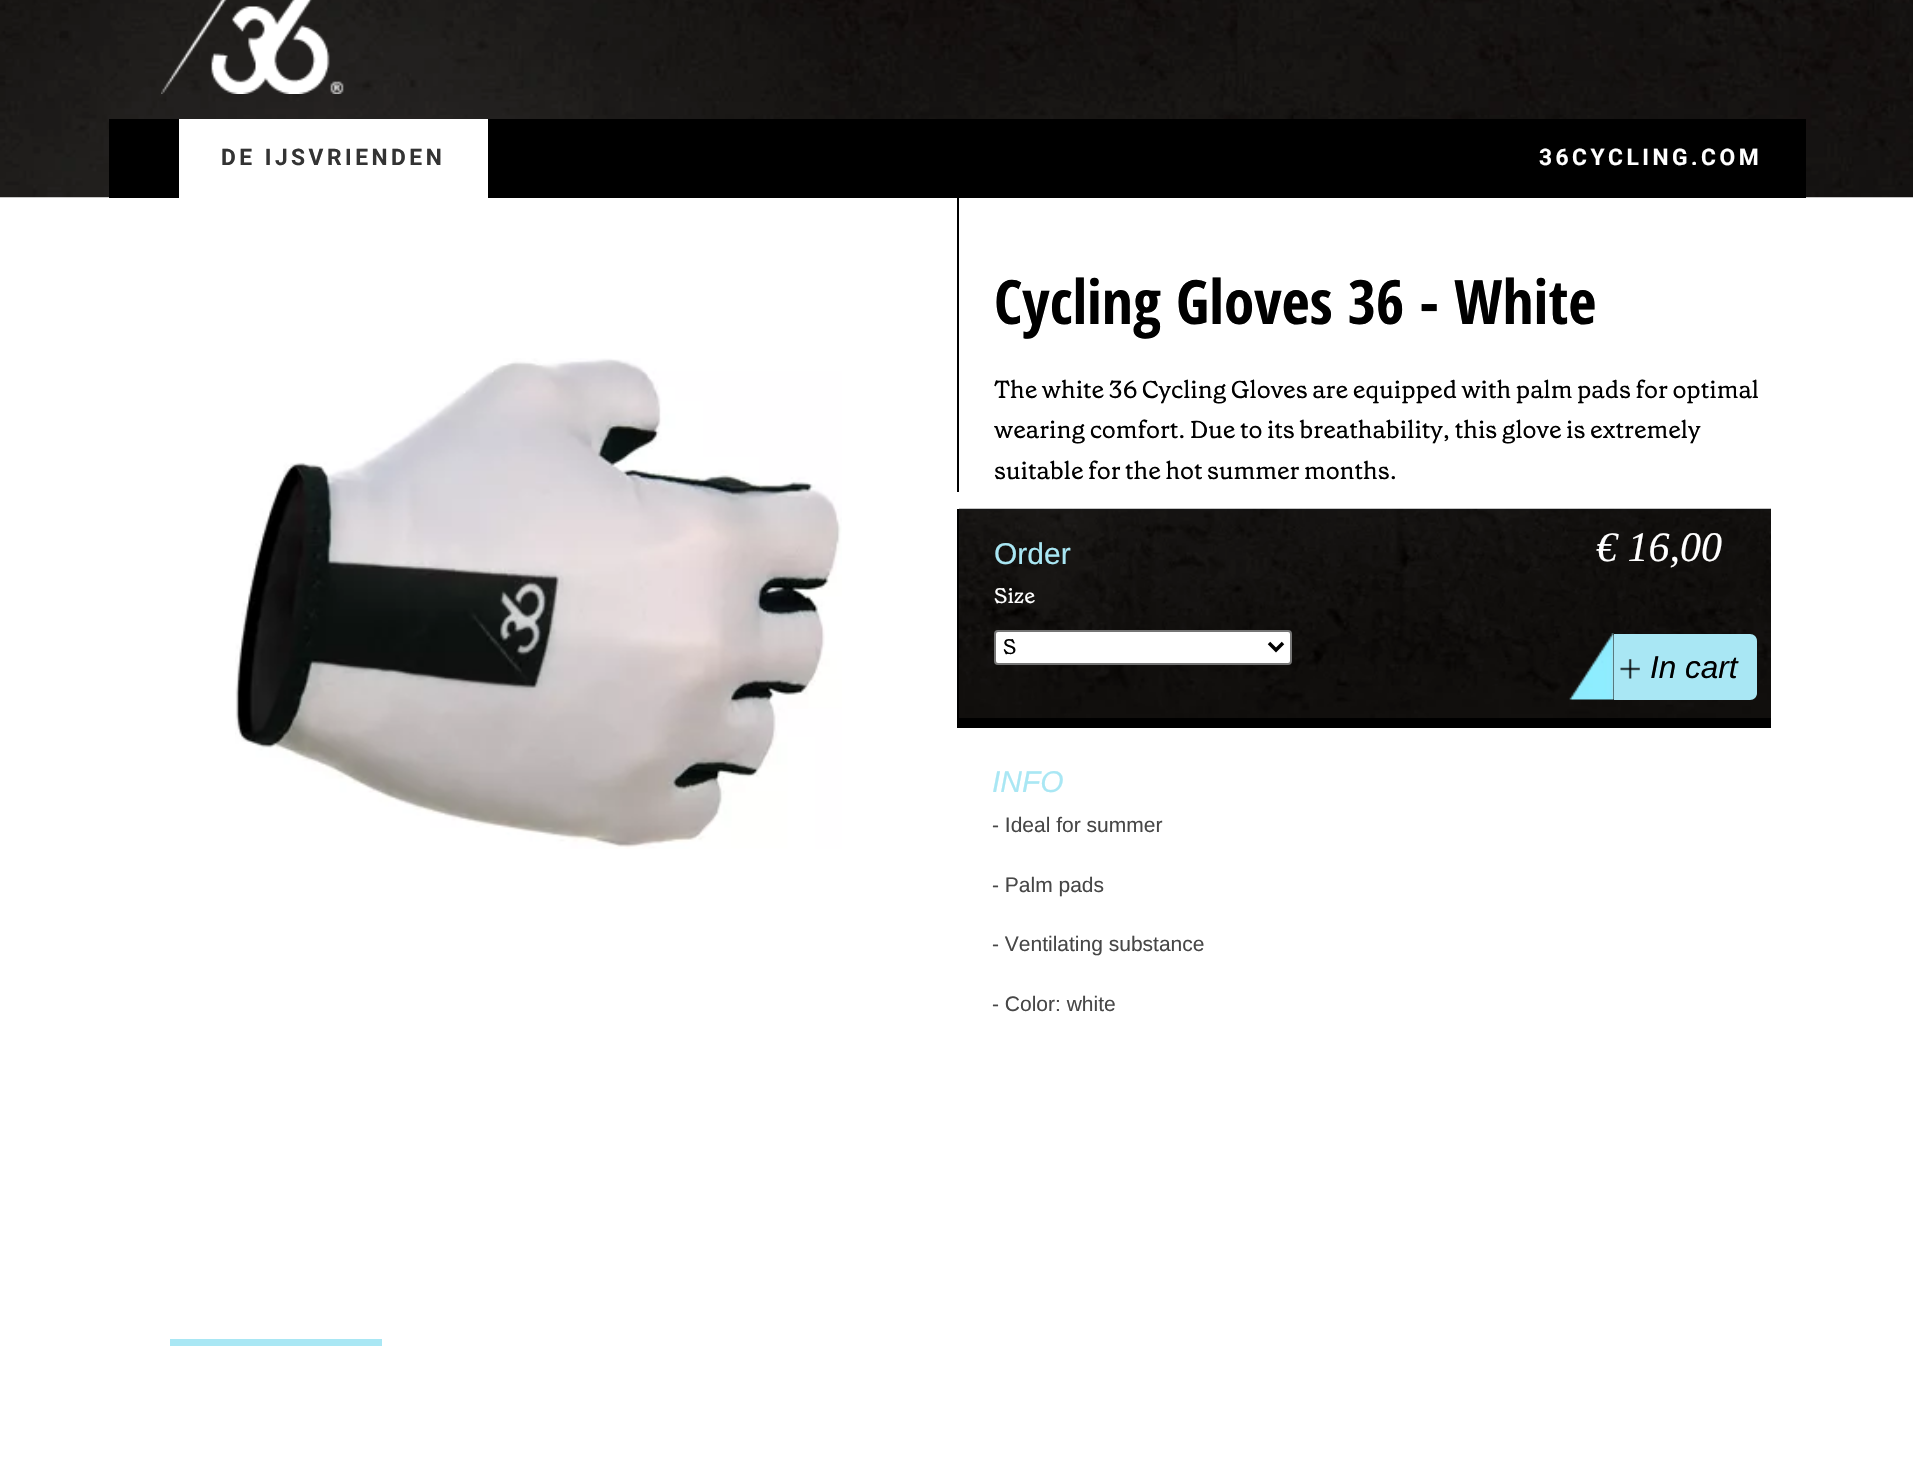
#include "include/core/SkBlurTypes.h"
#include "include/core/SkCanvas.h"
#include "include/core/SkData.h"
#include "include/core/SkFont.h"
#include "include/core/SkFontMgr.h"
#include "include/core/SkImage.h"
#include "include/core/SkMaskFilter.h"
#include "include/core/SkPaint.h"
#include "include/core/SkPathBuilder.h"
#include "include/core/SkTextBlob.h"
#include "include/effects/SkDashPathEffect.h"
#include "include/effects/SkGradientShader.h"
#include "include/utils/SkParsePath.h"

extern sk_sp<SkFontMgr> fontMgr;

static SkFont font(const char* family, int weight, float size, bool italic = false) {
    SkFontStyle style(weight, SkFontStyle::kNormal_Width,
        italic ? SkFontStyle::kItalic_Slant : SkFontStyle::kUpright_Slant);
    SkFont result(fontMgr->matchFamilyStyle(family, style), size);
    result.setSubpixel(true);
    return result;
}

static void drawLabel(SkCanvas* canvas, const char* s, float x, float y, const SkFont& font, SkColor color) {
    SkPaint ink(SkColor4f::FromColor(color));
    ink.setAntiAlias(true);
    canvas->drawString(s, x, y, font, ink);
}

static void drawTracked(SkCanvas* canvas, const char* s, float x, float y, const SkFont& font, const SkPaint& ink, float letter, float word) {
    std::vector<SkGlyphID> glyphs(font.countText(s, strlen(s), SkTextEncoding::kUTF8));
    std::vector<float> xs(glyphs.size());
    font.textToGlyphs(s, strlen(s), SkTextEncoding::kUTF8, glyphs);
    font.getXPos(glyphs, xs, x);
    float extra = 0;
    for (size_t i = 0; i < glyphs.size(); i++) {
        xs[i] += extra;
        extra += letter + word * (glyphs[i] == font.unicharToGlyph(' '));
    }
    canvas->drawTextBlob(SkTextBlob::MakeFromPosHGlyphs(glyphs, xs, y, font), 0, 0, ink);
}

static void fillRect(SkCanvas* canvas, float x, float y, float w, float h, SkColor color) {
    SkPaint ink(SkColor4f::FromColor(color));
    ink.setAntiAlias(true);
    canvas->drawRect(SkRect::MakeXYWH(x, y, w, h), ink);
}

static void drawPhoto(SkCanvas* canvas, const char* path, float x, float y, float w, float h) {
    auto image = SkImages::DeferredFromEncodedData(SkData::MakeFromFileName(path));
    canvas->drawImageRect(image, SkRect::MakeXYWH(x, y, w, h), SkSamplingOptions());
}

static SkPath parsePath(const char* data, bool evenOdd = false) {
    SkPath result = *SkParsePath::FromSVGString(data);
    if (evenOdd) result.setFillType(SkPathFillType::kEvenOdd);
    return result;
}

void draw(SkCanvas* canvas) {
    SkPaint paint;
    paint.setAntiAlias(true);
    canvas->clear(0xFFFFFFFF);
    drawPhoto(canvas, "assets/img1.png", 0, 0, 1913, 198);
    drawPhoto(canvas, "assets/img2.png", 161, 0, 183, 94);
    fillRect(canvas, 109, 119, 1697, 79, 0xFF000000);
    fillRect(canvas, 179, 119, 309, 79, 0xFFFFFFFF);
    SkFont font1 = font("Roboto", 700, 22.75f);
    paint.setColor(0xFF333333);
    drawTracked(canvas, "DE IJSVRIENDEN", 221, 165, font1, paint, 3.5f, 0);
    paint.setColor(0xFFFFFFFF);
    drawTracked(canvas, "36CYCLING.COM", 1539, 165, font1, paint, 3.5f, 0);
    drawPhoto(canvas, "assets/img3.png", 235, 358, 607, 491);
    fillRect(canvas, 170, 1339, 212, 7, 0xFFA9E7F4);
    fillRect(canvas, 957, 198, 2, 294, 0xFF000000);
    SkFont font2 = font("Open Sans Condensed", 700, 61.25f);
    drawLabel(canvas, "Cycling Gloves 36 - White", 994, 324, font2, 0xFF000000);
    SkFont font3 = font("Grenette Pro", 400, 24.5f);
    drawLabel(canvas, "The white 36 Cycling Gloves are equipped with palm pads for optimal", 994, 398, font3, 0xFF000000);
    drawLabel(canvas, "wearing comfort. Due to its breathability, this glove is extremely", 994, 438, font3, 0xFF000000);
    drawLabel(canvas, "suitable for the hot summer months.", 994, 479, font3, 0xFF000000);
    drawPhoto(canvas, "assets/img4.png", 959, 508, 812, 210);
    fillRect(canvas, 959, 718, 812, 10, 0xFF000000);
    fillRect(canvas, 957, 509, 2, 219, 0xFF000000);
    SkFont font4 = font("Liberation Sans", 400, 30);
    drawLabel(canvas, "Order", 994, 564, font4, 0xFFA9E7F4);
    SkFont font5 = font("Liberation Serif", 400, 42, true);
    drawLabel(canvas, "€ 16,00", 1596, 561, font5, 0xFFFFFFFF);
    SkFont font6 = font("Grenette Pro", 400, 21);
    drawLabel(canvas, "Size", 994, 603, font6, 0xFFFFFFFF);
    canvas->drawRoundRect(SkRect::MakeXYWH(995, 631, 296, 33), 3, 3, paint);
    paint.setStroke(true);
    paint.setStrokeWidth(2);
    paint.setColor(0xFF767676);
    canvas->drawRoundRect(SkRect::MakeXYWH(995, 631, 296, 33), 3, 3, paint);
    paint.setStrokeWidth(3.5f);
    paint.setColor(0xFF000000);
    canvas->drawPath(parsePath("M1269 643L1276 650L1283 643"), paint);
    drawLabel(canvas, "S", 1003, 654, font6, 0xFF000000);
    paint.setStroke(false);
    paint.setColor(0xFFA9E7F4);
    canvas->drawPath(parsePath("M1614 634H1750C1754 634 1757 637 1757 641V693C1757 697 1754 700 1750 700H1614Z"), paint);
    drawPhoto(canvas, "assets/img5.png", 1569, 633, 45, 67);
    drawPhoto(canvas, "assets/img6.png", 1620, 659, 20, 20);
    SkFont font7 = font("Liberation Sans", 400, 31.5f, true);
    drawLabel(canvas, "In cart", 1650, 678, font7, 0xFF000000);
    SkFont font8 = font("Liberation Sans", 400, 30, true);
    drawLabel(canvas, "INFO", 992, 792, font8, 0xFFA9E7F4);
    SkFont font9 = font("Liberation Sans", 400, 21);
    drawLabel(canvas, "- Ideal for summer", 992, 832, font9, 0xFF474747);
    drawLabel(canvas, "- Palm pads", 992, 892, font9, 0xFF474747);
    drawLabel(canvas, "- Ventilating substance", 992, 951, font9, 0xFF474747);
    drawLabel(canvas, "- Color: white", 992, 1011, font9, 0xFF474747);
}
